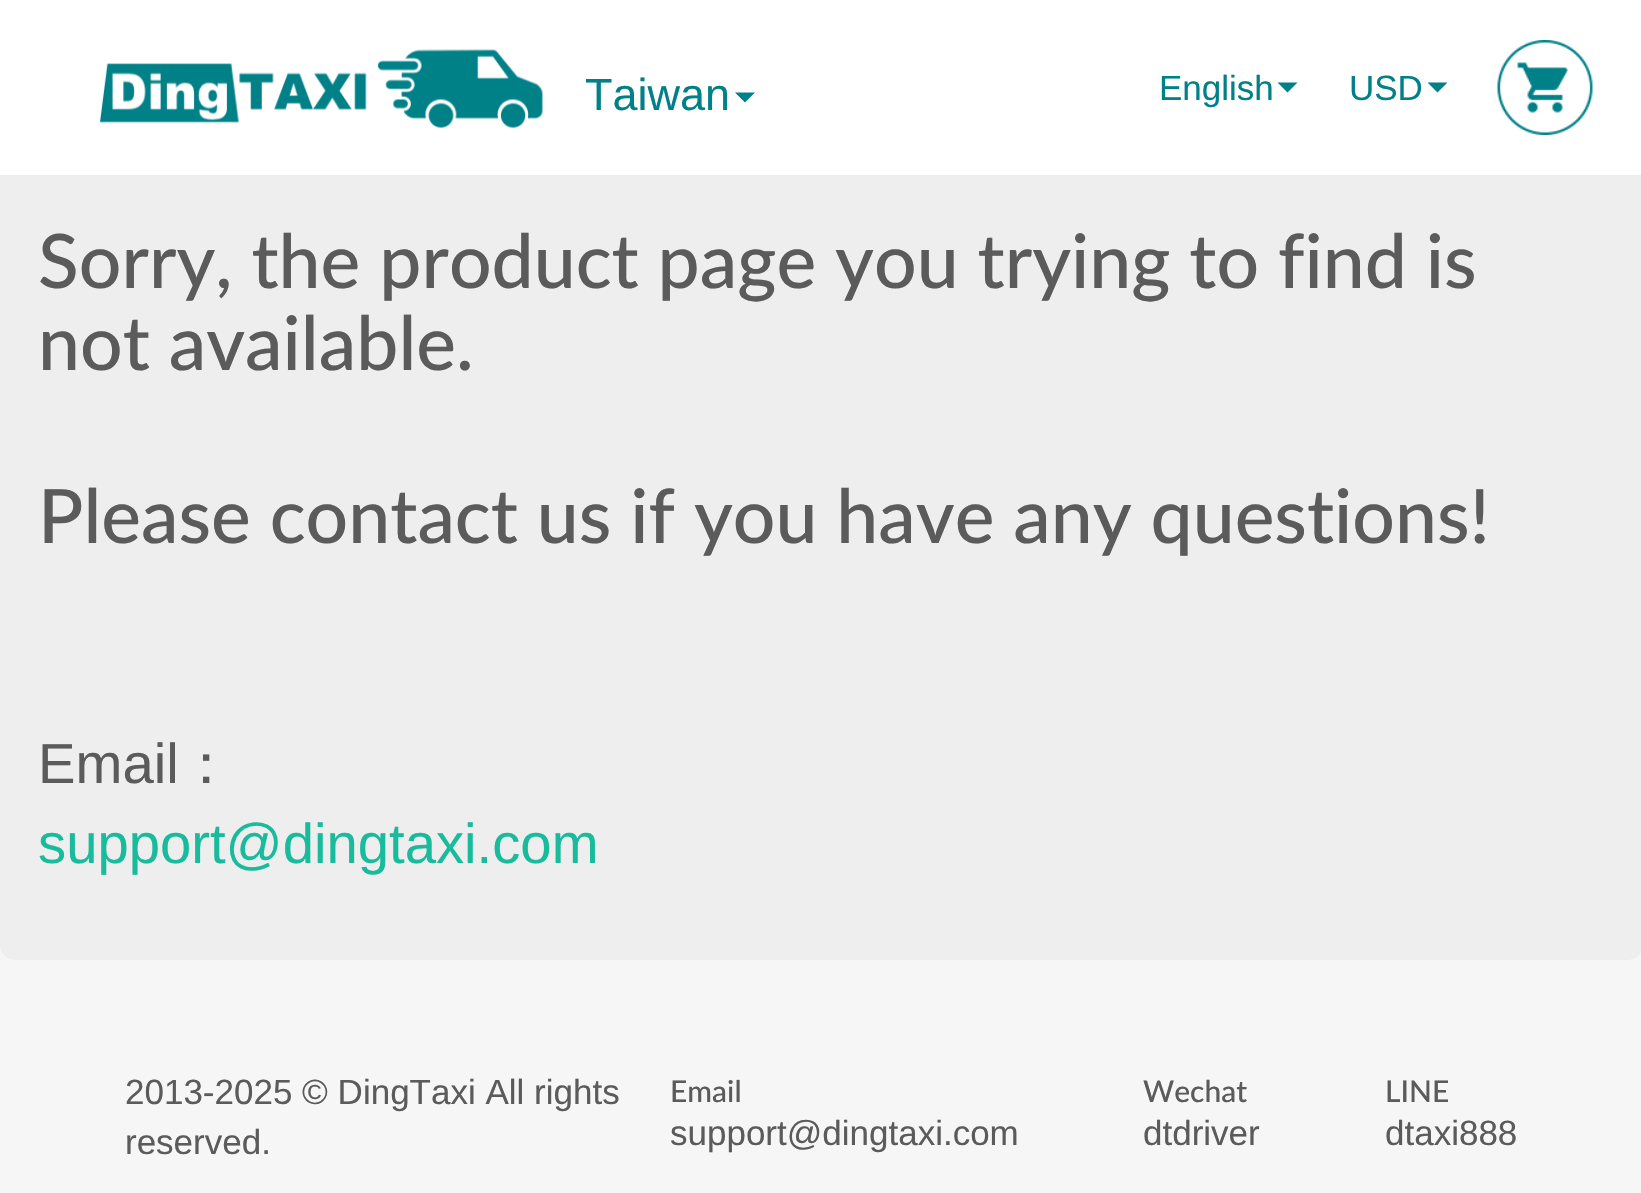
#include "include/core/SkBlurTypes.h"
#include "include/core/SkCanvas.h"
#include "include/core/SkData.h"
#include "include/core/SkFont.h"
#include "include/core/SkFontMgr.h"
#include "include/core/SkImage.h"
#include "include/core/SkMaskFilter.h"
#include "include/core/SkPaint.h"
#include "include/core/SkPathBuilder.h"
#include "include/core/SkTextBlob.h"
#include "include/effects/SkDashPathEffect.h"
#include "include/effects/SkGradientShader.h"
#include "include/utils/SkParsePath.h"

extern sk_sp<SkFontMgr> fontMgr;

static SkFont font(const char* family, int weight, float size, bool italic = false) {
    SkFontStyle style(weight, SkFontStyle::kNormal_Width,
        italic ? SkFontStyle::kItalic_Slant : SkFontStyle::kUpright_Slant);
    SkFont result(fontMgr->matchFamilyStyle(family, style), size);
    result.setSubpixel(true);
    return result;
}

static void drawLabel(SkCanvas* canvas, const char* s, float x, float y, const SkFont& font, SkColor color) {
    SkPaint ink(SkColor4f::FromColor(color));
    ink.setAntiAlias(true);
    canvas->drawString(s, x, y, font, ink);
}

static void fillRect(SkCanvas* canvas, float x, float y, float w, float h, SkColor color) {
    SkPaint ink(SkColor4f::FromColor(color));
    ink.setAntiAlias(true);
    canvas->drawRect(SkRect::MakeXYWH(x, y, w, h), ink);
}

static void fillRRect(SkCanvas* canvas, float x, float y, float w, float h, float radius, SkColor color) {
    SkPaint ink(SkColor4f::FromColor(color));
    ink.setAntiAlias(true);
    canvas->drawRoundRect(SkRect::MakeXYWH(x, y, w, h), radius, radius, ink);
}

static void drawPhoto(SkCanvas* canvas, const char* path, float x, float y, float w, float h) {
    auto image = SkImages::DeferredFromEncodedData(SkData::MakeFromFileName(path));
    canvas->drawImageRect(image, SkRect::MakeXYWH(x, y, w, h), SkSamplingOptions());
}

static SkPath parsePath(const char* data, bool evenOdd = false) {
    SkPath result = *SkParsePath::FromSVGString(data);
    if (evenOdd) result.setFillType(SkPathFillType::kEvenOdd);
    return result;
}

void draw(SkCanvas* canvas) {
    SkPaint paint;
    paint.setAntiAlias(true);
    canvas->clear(0xFFF6F6F6);
    fillRRect(canvas, 0, 53, 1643, 907, 15, 0xFFEEEEEE);
    fillRect(canvas, 0, 0, 1641, 175, 0xFFFFFFFF);
    drawPhoto(canvas, "assets/img1.png", 100, 49, 443, 79);
    SkFont font1 = font("Liberation Sans", 400, 45);
    drawLabel(canvas, "Taiwan", 585, 110, font1, 0xFF008087);
    paint.setColor(0xFF008087);
    canvas->drawPath(parsePath("M735 92.5H755L745 102.5Z"), paint);
    SkFont font2 = font("Liberation Sans", 400, 35);
    drawLabel(canvas, "English", 1159, 100, font2, 0xFF008087);
    canvas->drawPath(parsePath("M1277.5 82.5H1297.5L1287.5 92.5Z"), paint);
    drawLabel(canvas, "USD", 1349, 100, font2, 0xFF008087);
    canvas->drawPath(parsePath("M1427.5 82.5H1447.5L1437.5 92.5Z"), paint);
    drawPhoto(canvas, "assets/img2.png", 1497, 40, 96, 95);
    SkFont font3 = font("Lato", 500, 75);
    drawLabel(canvas, "Sorry, the product page you trying to find is", 38, 288, font3, 0xFF5B5B5B);
    drawLabel(canvas, "not available.", 38, 370, font3, 0xFF5B5B5B);
    drawLabel(canvas, "Please contact us if you have any questions!", 38, 543, font3, 0xFF5B5B5B);
    SkFont font4 = font("Liberation Sans", 400, 56.25f);
    drawLabel(canvas, "Email", 38, 783, font4, 0xFF5B5B5B);
    SkFont font5 = font("WenQuanYi Zen Hei", 500, 56.25f);
    drawLabel(canvas, "：", 178, 783, font5, 0xFF5B5B5B);
    drawLabel(canvas, "support@dingtaxi.com", 38, 863, font4, 0xFF18BC9C);
    drawLabel(canvas, "2013-2025 © DingTaxi All rights", 125, 1104, font2, 0xFF5B5B5B);
    drawLabel(canvas, "reserved.", 125, 1154, font2, 0xFF5B5B5B);
    SkFont font6 = font("Lato", 500, 30);
    drawLabel(canvas, "Email", 670, 1102, font6, 0xFF5B5B5B);
    drawLabel(canvas, "support@dingtaxi.com", 670, 1145, font2, 0xFF5B5B5B);
    drawLabel(canvas, "Wechat", 1143, 1102, font6, 0xFF5B5B5B);
    drawLabel(canvas, "dtdriver", 1143, 1145, font2, 0xFF5B5B5B);
    drawLabel(canvas, "LINE", 1385, 1102, font6, 0xFF5B5B5B);
    drawLabel(canvas, "dtaxi888", 1385, 1145, font2, 0xFF5B5B5B);
}
